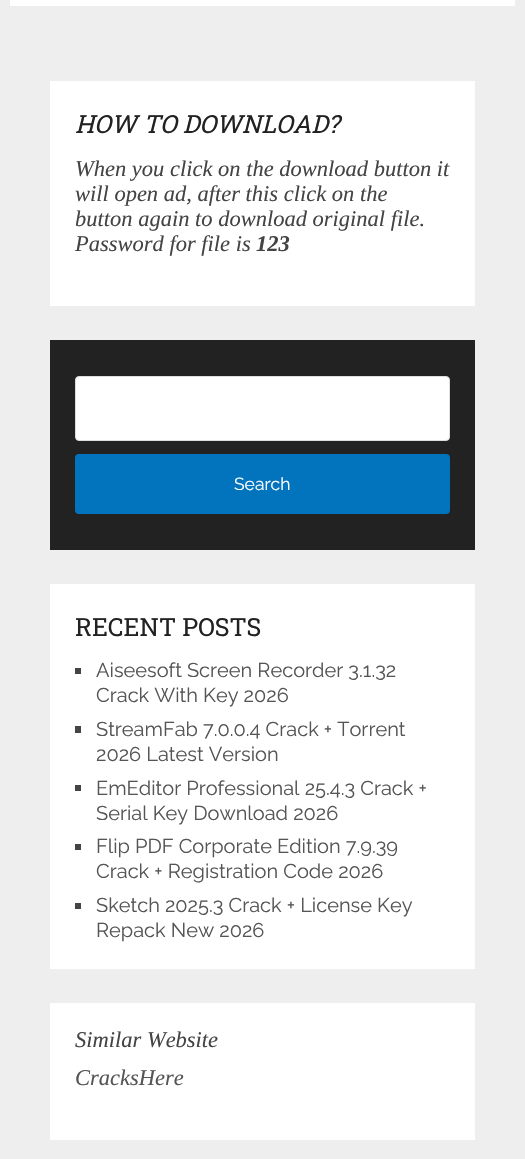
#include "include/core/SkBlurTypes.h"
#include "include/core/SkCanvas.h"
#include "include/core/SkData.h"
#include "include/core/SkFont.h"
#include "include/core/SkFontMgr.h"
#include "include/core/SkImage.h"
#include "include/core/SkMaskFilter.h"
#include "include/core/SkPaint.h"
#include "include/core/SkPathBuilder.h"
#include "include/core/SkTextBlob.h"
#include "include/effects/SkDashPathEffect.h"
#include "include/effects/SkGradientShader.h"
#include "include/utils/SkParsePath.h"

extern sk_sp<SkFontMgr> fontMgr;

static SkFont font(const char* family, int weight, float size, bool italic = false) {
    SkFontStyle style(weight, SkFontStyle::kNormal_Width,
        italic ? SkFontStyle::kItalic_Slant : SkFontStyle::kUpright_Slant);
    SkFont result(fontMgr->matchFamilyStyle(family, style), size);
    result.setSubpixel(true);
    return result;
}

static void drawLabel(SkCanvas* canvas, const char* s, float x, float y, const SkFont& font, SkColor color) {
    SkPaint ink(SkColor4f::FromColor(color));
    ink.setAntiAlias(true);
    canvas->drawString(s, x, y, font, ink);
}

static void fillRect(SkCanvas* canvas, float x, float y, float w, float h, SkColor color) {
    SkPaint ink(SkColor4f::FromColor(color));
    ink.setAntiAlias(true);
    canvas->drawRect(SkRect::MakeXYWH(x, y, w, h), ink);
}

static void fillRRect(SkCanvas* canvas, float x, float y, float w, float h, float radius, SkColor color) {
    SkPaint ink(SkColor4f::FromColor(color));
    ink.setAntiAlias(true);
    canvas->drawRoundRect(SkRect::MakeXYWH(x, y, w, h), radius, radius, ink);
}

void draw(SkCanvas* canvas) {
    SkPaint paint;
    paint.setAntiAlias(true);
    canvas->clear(0xFFEEEEEE);
    fillRect(canvas, 10, 0, 505, 6, 0xFFFFFFFF);
    fillRect(canvas, 50, 81, 425, 225, 0xFFFFFFFF);
    SkFont font1 = font("Roboto Slab", 400, 25, true);
    drawLabel(canvas, "HOW TO DOWNLOAD?", 75, 133, font1, 0xFF222222);
    SkFont font2 = font("Liberation Serif", 400, 22.5f, true);
    drawLabel(canvas, "When you click on the download button it", 75, 176, font2, 0xFF444444);
    drawLabel(canvas, "will open ad, after this click on the", 75, 201, font2, 0xFF444444);
    drawLabel(canvas, "button again to download original file.", 75, 226, font2, 0xFF444444);
    drawLabel(canvas, "Password for file is", 75, 251, font2, 0xFF444444);
    SkFont font3 = font("Liberation Serif", 700, 22.5f, true);
    drawLabel(canvas, "123", 256, 251, font3, 0xFF444444);
    fillRect(canvas, 50, 340, 425, 210, 0xFF222222);
    paint.setColor(0xFFFFFFFF);
    canvas->drawRoundRect(SkRect::MakeXYWH(75.5f, 376.5f, 374, 64), 3.5f, 3.5f, paint);
    paint.setStroke(true);
    paint.setStrokeWidth(1);
    paint.setColor(0xFFDDDDDD);
    canvas->drawRoundRect(SkRect::MakeXYWH(75.5f, 376.5f, 374, 64), 3.5f, 3.5f, paint);
    fillRRect(canvas, 75, 454, 375, 60, 4, 0xFF0274BE);
    SkFont font4 = font("Raleway", 400, 17.5f);
    drawLabel(canvas, "Search", 234, 490, font4, 0xFFFFFFFF);
    fillRect(canvas, 50, 584, 425, 385, 0xFFFFFFFF);
    SkFont font5 = font("Roboto Slab", 400, 25);
    drawLabel(canvas, "RECENT POSTS", 75, 636, font5, 0xFF222222);
    fillRect(canvas, 75, 668, 6, 6, 0xFF444444);
    SkFont font6 = font("Raleway", 400, 20);
    drawLabel(canvas, "Aiseesoft Screen Recorder 3.1.32", 96, 677, font6, 0xFF555555);
    drawLabel(canvas, "Crack With Key 2026", 96, 702, font6, 0xFF555555);
    fillRect(canvas, 75, 726, 6, 7, 0xFF444444);
    drawLabel(canvas, "StreamFab 7.0.0.4 Crack + Torrent", 96, 736, font6, 0xFF555555);
    drawLabel(canvas, "2026 Latest Version", 96, 761, font6, 0xFF555555);
    fillRect(canvas, 75, 785, 6, 6, 0xFF444444);
    drawLabel(canvas, "EmEditor Professional 25.4.3 Crack +", 96, 795, font6, 0xFF555555);
    drawLabel(canvas, "Serial Key Download 2026", 96, 820, font6, 0xFF555555);
    fillRect(canvas, 75, 844, 6, 6, 0xFF444444);
    drawLabel(canvas, "Flip PDF Corporate Edition 7.9.39", 96, 853, font6, 0xFF555555);
    drawLabel(canvas, "Crack + Registration Code 2026", 96, 878, font6, 0xFF555555);
    fillRect(canvas, 75, 903, 6, 6, 0xFF444444);
    drawLabel(canvas, "Sketch 2025.3 Crack + License Key", 96, 912, font6, 0xFF555555);
    drawLabel(canvas, "Repack New 2026", 96, 937, font6, 0xFF555555);
    fillRect(canvas, 50, 1003, 425, 137, 0xFFFFFFFF);
    drawLabel(canvas, "Similar Website", 75, 1047, font2, 0xFF444444);
    drawLabel(canvas, "CracksHere", 75, 1085, font2, 0xFF555555);
}
